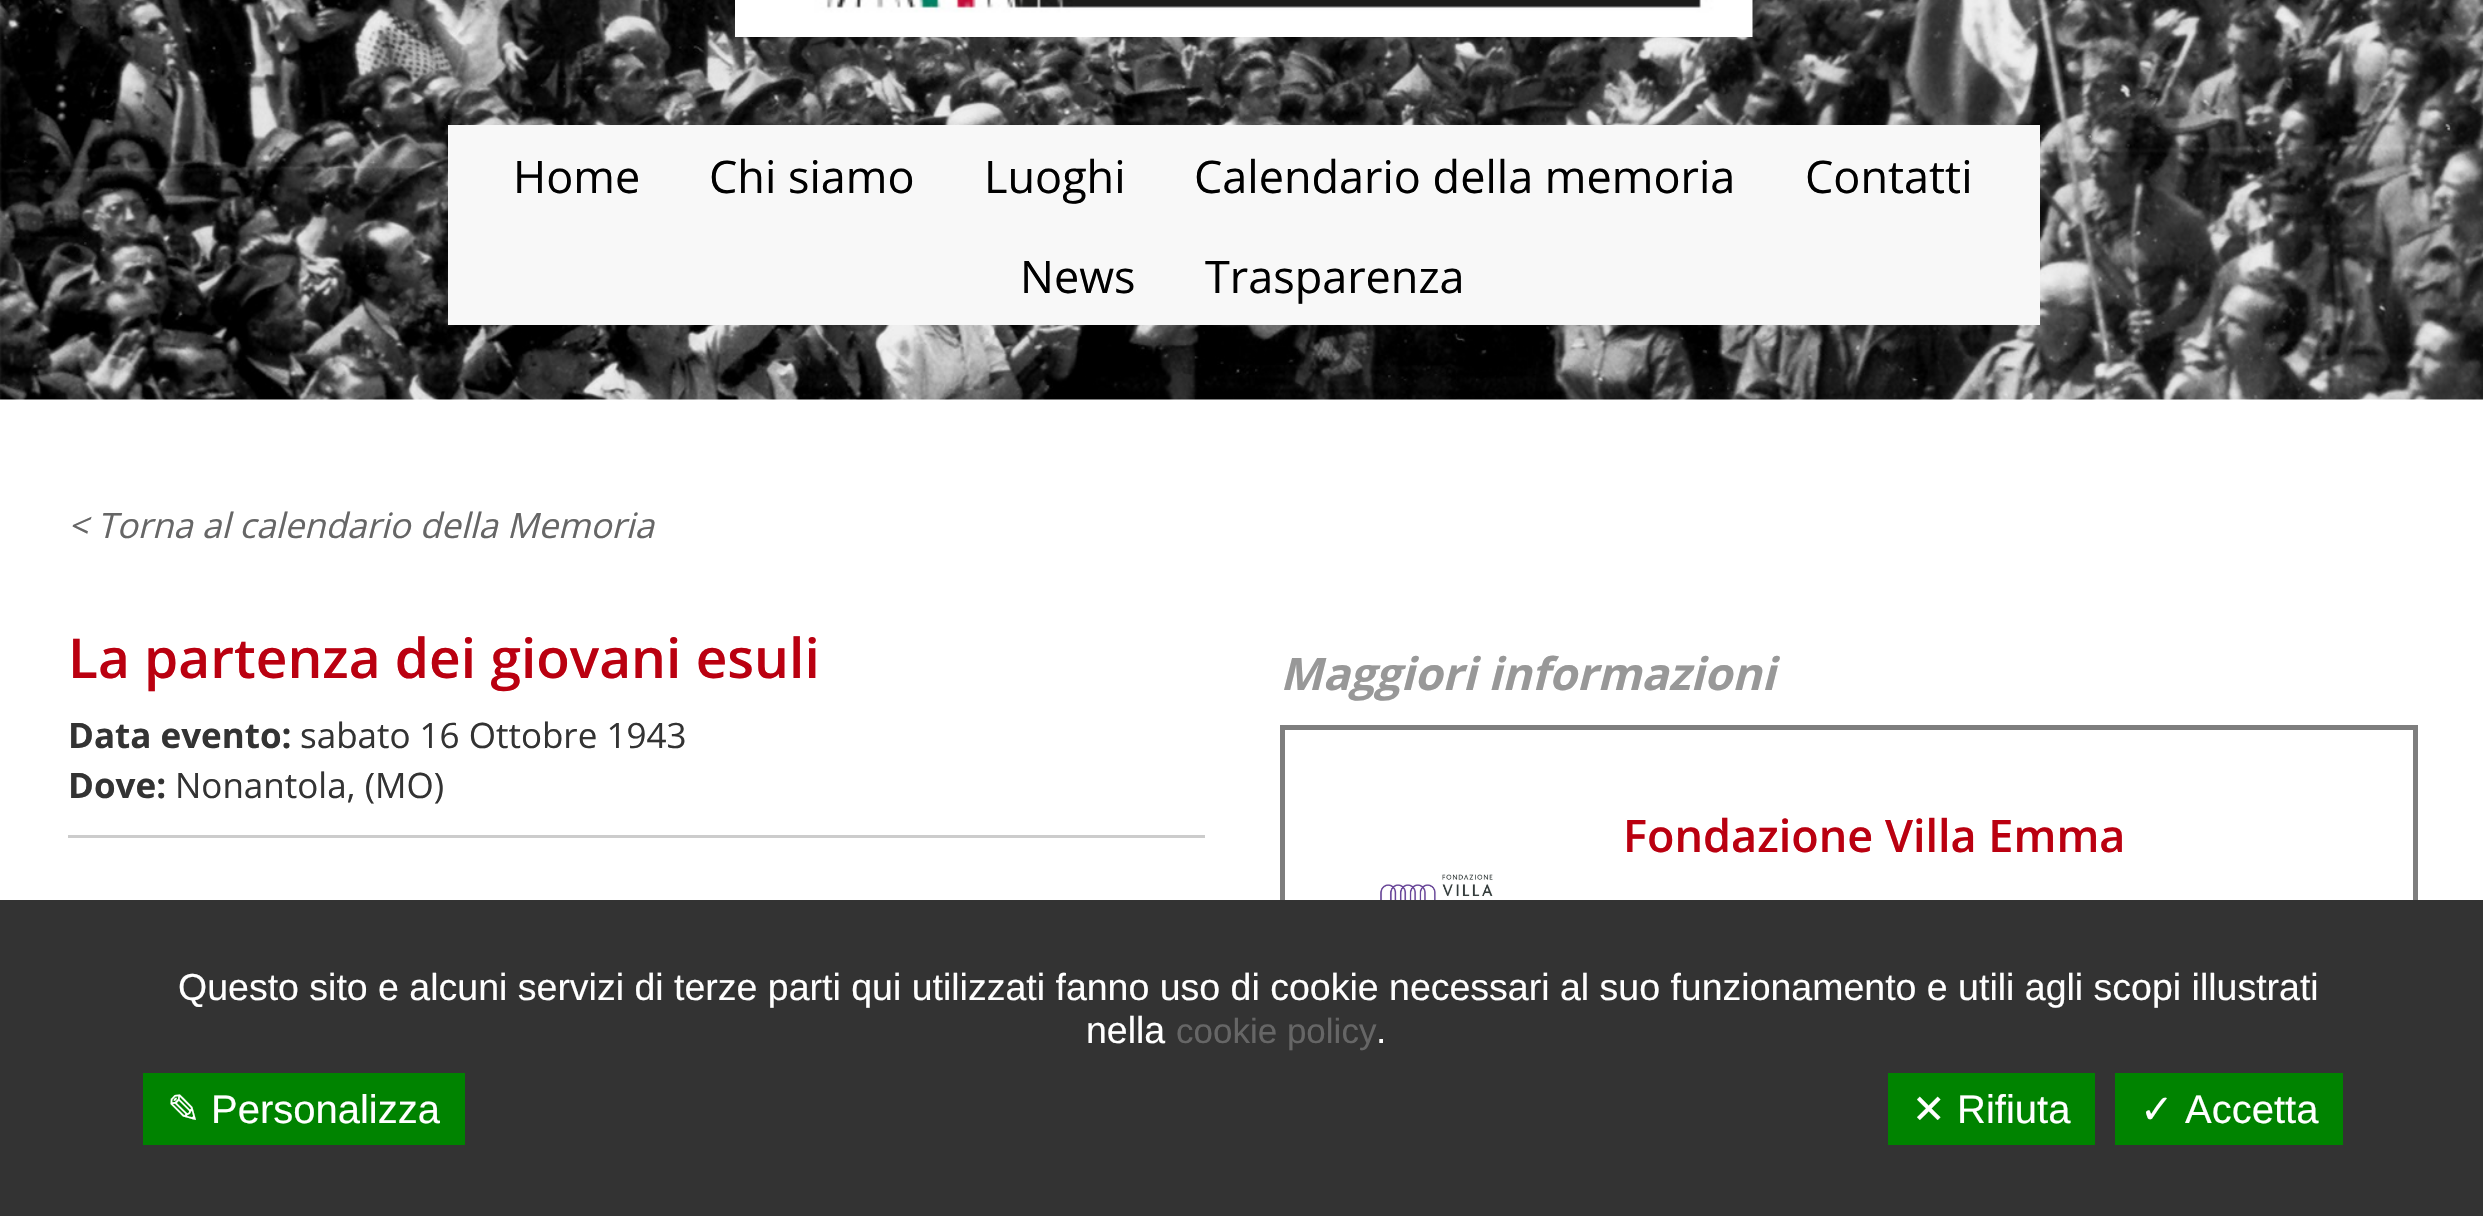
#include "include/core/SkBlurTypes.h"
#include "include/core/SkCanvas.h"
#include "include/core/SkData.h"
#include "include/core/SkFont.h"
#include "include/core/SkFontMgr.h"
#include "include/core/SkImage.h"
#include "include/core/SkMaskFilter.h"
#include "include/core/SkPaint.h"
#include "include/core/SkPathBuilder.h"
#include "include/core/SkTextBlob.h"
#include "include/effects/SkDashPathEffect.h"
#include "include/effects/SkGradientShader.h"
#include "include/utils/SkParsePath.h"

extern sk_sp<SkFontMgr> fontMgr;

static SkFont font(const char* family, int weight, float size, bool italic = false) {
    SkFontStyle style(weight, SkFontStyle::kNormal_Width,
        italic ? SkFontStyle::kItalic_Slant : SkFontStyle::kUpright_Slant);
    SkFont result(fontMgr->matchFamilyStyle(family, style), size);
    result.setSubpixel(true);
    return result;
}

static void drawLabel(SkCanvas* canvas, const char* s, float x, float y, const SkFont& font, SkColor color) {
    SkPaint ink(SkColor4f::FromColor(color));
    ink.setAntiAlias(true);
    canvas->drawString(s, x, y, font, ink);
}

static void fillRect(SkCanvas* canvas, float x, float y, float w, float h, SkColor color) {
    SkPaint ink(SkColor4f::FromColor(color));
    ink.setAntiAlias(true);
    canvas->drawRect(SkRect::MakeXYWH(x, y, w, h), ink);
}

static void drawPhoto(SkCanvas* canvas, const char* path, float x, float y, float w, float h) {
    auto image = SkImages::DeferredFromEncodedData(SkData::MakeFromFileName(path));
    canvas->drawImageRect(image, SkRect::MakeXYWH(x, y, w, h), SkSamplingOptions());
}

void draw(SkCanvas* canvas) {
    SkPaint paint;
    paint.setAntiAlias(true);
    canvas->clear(0xFFFFFFFF);
    drawPhoto(canvas, "assets/img1.png", 0, 0, 2483, 400);
    drawPhoto(canvas, "assets/img2.png", 735, 0, 1018, 37);
    fillRect(canvas, 448, 125, 1592, 200, 0xFFF8F8F8);
    SkFont font1 = font("Open Sans", 400, 45);
    drawLabel(canvas, "Home", 513, 193, font1, 0xFF000000);
    drawLabel(canvas, "Chi siamo", 709, 193, font1, 0xFF000000);
    drawLabel(canvas, "Luoghi", 984, 193, font1, 0xFF000000);
    drawLabel(canvas, "Calendario della memoria", 1194, 193, font1, 0xFF000000);
    drawLabel(canvas, "Contatti", 1805, 193, font1, 0xFF000000);
    drawLabel(canvas, "News", 1020, 293, font1, 0xFF000000);
    drawLabel(canvas, "Trasparenza", 1205, 293, font1, 0xFF000000);
    SkFont font2 = font("Open Sans", 400, 35, true);
    drawLabel(canvas, "< Torna al calendario della Memoria", 68, 538, font2, 0xFF666666);
    SkFont font3 = font("Open Sans", 600, 55);
    drawLabel(canvas, "La partenza dei giovani esuli", 68, 678, font3, 0xFFBA0010);
    SkFont font4 = font("Open Sans", 700, 35);
    drawLabel(canvas, "Data evento:", 68, 748, font4, 0xFF333333);
    SkFont font5 = font("Open Sans", 400, 35);
    drawLabel(canvas, "sabato 16 Ottobre 1943", 300, 748, font5, 0xFF333333);
    drawLabel(canvas, "Dove:", 68, 798, font4, 0xFF333333);
    drawLabel(canvas, "Nonantola, (MO)", 175, 798, font5, 0xFF333333);
    fillRect(canvas, 68, 835, 1137, 3, 0xFFCCCCCC);
    SkFont font6 = font("Open Sans", 700, 45, true);
    drawLabel(canvas, "Maggiori informazioni", 1280, 690, font6, 0xFF989898);
    paint.setStroke(true);
    paint.setStrokeWidth(5);
    paint.setColor(0xFF7E7E7E);
    canvas->drawRect(SkRect::MakeXYWH(1282.5f, 727.5f, 1133, 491), paint);
    SkFont font7 = font("Open Sans", 600, 45);
    drawLabel(canvas, "Fondazione Villa Emma", 1623, 852, font7, 0xFFBA0010);
    drawPhoto(canvas, "assets/img3.png", 1380, 874, 148, 26);
    fillRect(canvas, 0, 900, 2483, 316, 0xFF333333);
    SkFont font8 = font("Liberation Sans", 400, 37.5f);
    drawLabel(canvas, "Questo sito e alcuni servizi di terze parti qui utilizzati fanno uso di cookie necessari al suo funzionamento e utili agli scopi illustrati", 178, 1000, font8, 0xFFFFFFFF);
    drawLabel(canvas, "nella", 1086, 1043, font8, 0xFFFFFFFF);
    SkFont font9 = font("Liberation Sans", 400, 35);
    drawLabel(canvas, "cookie policy", 1176, 1043, font9, 0xFF666666);
    drawLabel(canvas, ".", 1376, 1043, font8, 0xFFFFFFFF);
    fillRect(canvas, 143, 1073, 322, 72, 0xFF008300);
    SkFont font10 = font("DejaVu Sans", 400, 40);
    drawLabel(canvas, "✎", 167, 1123, font10, 0xFFFFFFFF);
    SkFont font11 = font("Liberation Sans", 400, 40);
    drawLabel(canvas, "Personalizza", 211, 1123, font11, 0xFFFFFFFF);
    fillRect(canvas, 1888, 1073, 207, 72, 0xFF008300);
    drawLabel(canvas, "✕", 1912, 1123, font10, 0xFFFFFFFF);
    drawLabel(canvas, "Rifiuta", 1957, 1123, font11, 0xFFFFFFFF);
    fillRect(canvas, 2115, 1073, 228, 72, 0xFF008300);
    drawLabel(canvas, "✓", 2140, 1123, font10, 0xFFFFFFFF);
    drawLabel(canvas, "Accetta", 2185, 1123, font11, 0xFFFFFFFF);
}
